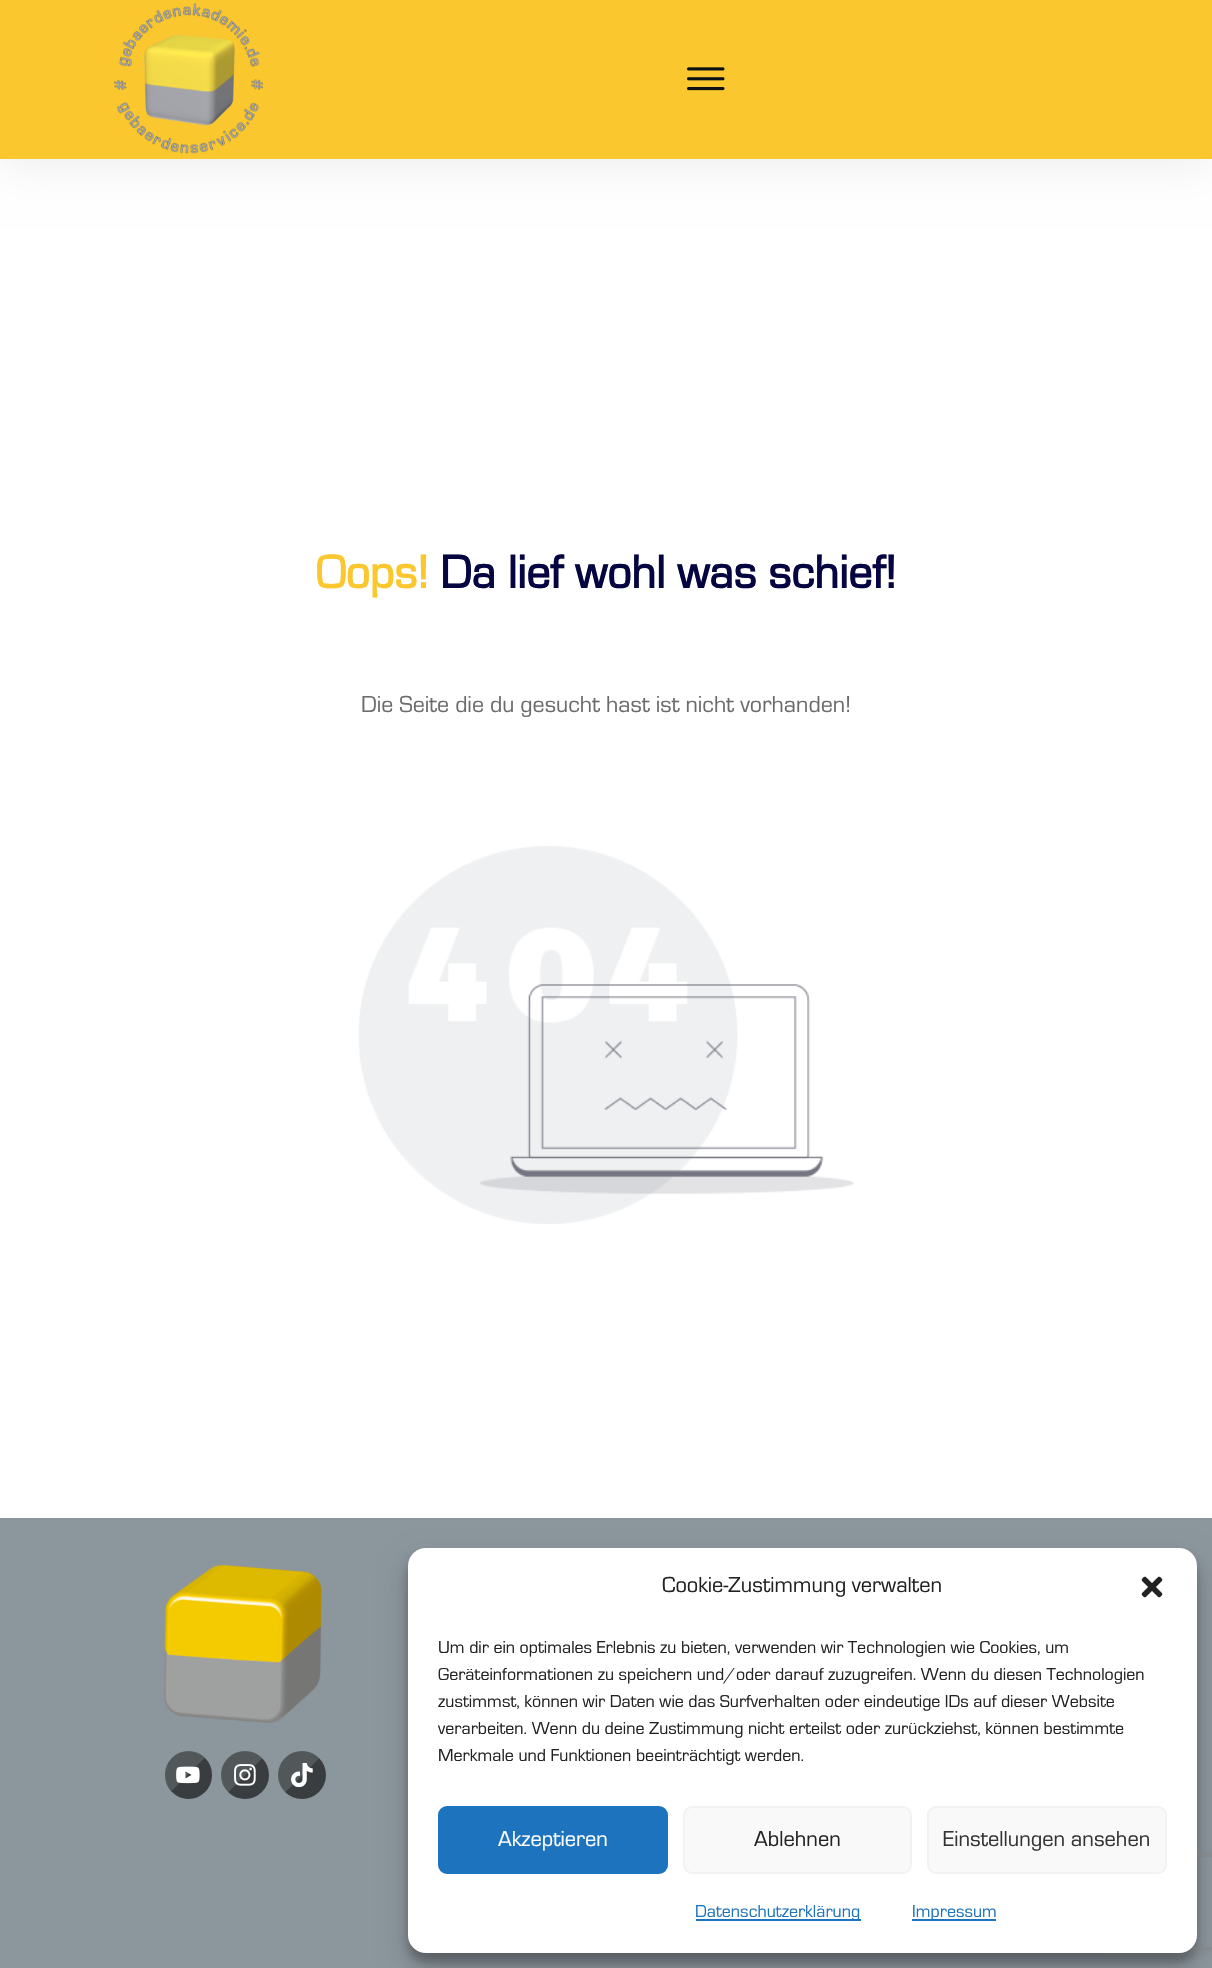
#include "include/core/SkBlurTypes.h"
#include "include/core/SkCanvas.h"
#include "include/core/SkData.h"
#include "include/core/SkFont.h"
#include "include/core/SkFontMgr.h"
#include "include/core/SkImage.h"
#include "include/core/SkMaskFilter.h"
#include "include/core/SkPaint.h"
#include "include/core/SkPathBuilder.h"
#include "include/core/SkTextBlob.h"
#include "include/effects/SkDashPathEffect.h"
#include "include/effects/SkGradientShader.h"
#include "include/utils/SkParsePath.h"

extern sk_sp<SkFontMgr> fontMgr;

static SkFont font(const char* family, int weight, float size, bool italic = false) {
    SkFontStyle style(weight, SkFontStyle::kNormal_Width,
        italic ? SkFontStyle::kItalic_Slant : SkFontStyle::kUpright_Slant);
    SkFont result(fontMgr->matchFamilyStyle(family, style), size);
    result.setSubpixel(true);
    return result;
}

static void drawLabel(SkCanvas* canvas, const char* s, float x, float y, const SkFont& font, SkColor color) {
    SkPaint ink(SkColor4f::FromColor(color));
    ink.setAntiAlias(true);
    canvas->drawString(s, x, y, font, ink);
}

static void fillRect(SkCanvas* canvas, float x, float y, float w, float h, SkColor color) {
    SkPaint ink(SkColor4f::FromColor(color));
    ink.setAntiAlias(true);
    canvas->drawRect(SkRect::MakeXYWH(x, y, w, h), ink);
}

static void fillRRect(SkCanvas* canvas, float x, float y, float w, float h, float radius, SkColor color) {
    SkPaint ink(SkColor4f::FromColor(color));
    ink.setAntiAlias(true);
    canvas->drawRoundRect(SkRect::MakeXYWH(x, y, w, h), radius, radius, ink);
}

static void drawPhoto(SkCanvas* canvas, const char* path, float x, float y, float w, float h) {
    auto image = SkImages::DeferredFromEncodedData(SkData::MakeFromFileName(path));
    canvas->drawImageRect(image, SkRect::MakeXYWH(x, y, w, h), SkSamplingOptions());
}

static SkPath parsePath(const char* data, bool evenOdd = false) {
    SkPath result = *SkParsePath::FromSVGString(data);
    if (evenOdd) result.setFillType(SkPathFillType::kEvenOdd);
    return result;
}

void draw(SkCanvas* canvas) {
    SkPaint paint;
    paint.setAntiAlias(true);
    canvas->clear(0xFFFFFFFF);
    paint.setColor(0x14000000);
    paint.setMaskFilter(SkMaskFilter::MakeBlur(kNormal_SkBlurStyle, 22.5f));
    canvas->drawRect(SkRect::MakeXYWH(0, 3, 1212, 159), paint);
    paint.setMaskFilter(nullptr);
    fillRect(canvas, 0, 0, 1212, 159, 0xFFFAC72E);
    drawPhoto(canvas, "assets/img1.png", 114, 3, 149, 151);
    drawPhoto(canvas, "assets/img2.png", 687, 67, 38, 24);
    SkFont font1 = font("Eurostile", 700, 48);
    drawLabel(canvas, "Oops!", 316, 588, font1, 0xFFFAC72E);
    drawLabel(canvas, "Da lief wohl was schief!", 440, 588, font1, 0xFF050541);
    SkFont font2 = font("Eurostile", 400, 24);
    drawLabel(canvas, "Die Seite die du gesucht hast ist nicht vorhanden!", 361, 712, font2, 0xFF6A6B6C);
    drawPhoto(canvas, "assets/img3.png", 358, 846, 496, 378);
    fillRect(canvas, 0, 1518, 1212, 450, 0xFF8C969D);
    drawPhoto(canvas, "assets/img4.png", 164, 1564, 158, 159);
    {
        const SkColor colors[] = {0xFF52575A, 0xFF3A3D3F};
        const float stops[] = {0.5f, 0.5f};
        const SkPoint ends[] = {{164, 1751}, {212, 1798}};
        paint.setShader(SkGradientShader::MakeLinear(ends, colors, stops, 2, SkTileMode::kClamp));
        paint.setAlpha(255);
    }
    canvas->drawRoundRect(SkRect::MakeXYWH(165, 1751, 47, 48), 23.5f, 23.5f, paint);
    drawPhoto(canvas, "assets/img5.png", 176, 1766, 24, 18);
    {
        const SkColor colors[] = {0xFF52575A, 0xFF3A3D3F};
        const float stops[] = {0.5f, 0.5f};
        const SkPoint ends[] = {{221, 1751}, {269, 1799}};
        paint.setShader(SkGradientShader::MakeLinear(ends, colors, stops, 2, SkTileMode::kClamp));
        paint.setAlpha(255);
    }
    canvas->drawCircle(245, 1775, 24, paint);
    drawPhoto(canvas, "assets/img6.png", 234, 1764, 22, 22);
    {
        const SkColor colors[] = {0xFF52575A, 0xFF3A3D3F};
        const float stops[] = {0.5f, 0.5f};
        const SkPoint ends[] = {{278, 1751}, {326, 1799}};
        paint.setShader(SkGradientShader::MakeLinear(ends, colors, stops, 2, SkTileMode::kClamp));
        paint.setAlpha(255);
    }
    canvas->drawCircle(302, 1775, 24, paint);
    drawPhoto(canvas, "assets/img7.png", 291, 1763, 22, 24);
    paint.setShader(nullptr);
    paint.setColor(0x3B000000);
    paint.setMaskFilter(SkMaskFilter::MakeBlur(kNormal_SkBlurStyle, 4.5f));
    canvas->drawRoundRect(SkRect::MakeXYWH(408, 1557, 789, 405), 18, 18, paint);
    paint.setMaskFilter(nullptr);
    paint.setColor(0x30000000);
    paint.setMaskFilter(SkMaskFilter::MakeBlur(kNormal_SkBlurStyle, 15));
    canvas->drawRoundRect(SkRect::MakeXYWH(408, 1563, 789, 405), 18, 18, paint);
    paint.setMaskFilter(nullptr);
    canvas->save();
    canvas->clipPath(parsePath("M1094 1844H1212V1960H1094ZM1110 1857H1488C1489.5 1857 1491 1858.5 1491 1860V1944C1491 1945.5 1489.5 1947 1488 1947H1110C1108.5 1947 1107 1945.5 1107 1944V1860C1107 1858.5 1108.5 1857 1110 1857Z", true), true);
    paint.setColor(0xFF808080);
    paint.setMaskFilter(SkMaskFilter::MakeBlur(kNormal_SkBlurStyle, 4));
    canvas->drawRoundRect(SkRect::MakeXYWH(1107, 1857, 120, 90), 3, 3, paint);
    paint.setMaskFilter(nullptr);
    canvas->restore();
    fillRRect(canvas, 408, 1548, 789, 405, 18, 0xFFFFFFFF);
    SkFont font3 = font("Eurostile", 400, 22.5f);
    drawLabel(canvas, "Cookie-Zustimmung verwalten", 662, 1592, font3, 0xFF222222);
    drawPhoto(canvas, "assets/img8.png", 1141, 1576, 22, 22);
    SkFont font4 = font("Eurostile", 400, 18);
    drawLabel(canvas, "Um dir ein optimales Erlebnis zu bieten, verwenden wir Technologien wie Cookies, um", 438, 1653, font4, 0xFF222222);
    drawLabel(canvas, "Geräteinformationen zu speichern und/oder darauf zuzugreifen. Wenn du diesen Technologien", 438, 1680, font4, 0xFF222222);
    drawLabel(canvas, "zustimmst, können wir Daten wie das Surfverhalten oder eindeutige IDs auf dieser Website", 438, 1707, font4, 0xFF222222);
    drawLabel(canvas, "verarbeiten. Wenn du deine Zustimmung nicht erteilst oder zurückziehst, können bestimmte", 438, 1734, font4, 0xFF222222);
    drawLabel(canvas, "Merkmale und Funktionen beeinträchtigt werden.", 438, 1761, font4, 0xFF222222);
    paint.setColor(0xFF1E73BE);
    canvas->drawRoundRect(SkRect::MakeXYWH(439, 1807, 228, 66), 8, 8, paint);
    paint.setStroke(true);
    paint.setStrokeWidth(2);
    canvas->drawRoundRect(SkRect::MakeXYWH(439, 1807, 228, 66), 8, 8, paint);
    drawLabel(canvas, "Akzeptieren", 498, 1846, font3, 0xFFFFFFFF);
    paint.setStroke(false);
    paint.setColor(0xFFF9F9F9);
    canvas->drawRoundRect(SkRect::MakeXYWH(684, 1807, 227, 66), 8, 8, paint);
    paint.setStroke(true);
    paint.setColor(0xFFF2F2F2);
    canvas->drawRoundRect(SkRect::MakeXYWH(684, 1807, 227, 66), 8, 8, paint);
    drawLabel(canvas, "Ablehnen", 754, 1846, font3, 0xFF222222);
    paint.setStroke(false);
    paint.setColor(0xFFF9F9F9);
    canvas->drawRoundRect(SkRect::MakeXYWH(928, 1807, 238, 66), 8, 8, paint);
    paint.setStroke(true);
    paint.setColor(0xFFF2F2F2);
    canvas->drawRoundRect(SkRect::MakeXYWH(928, 1807, 238, 66), 8, 8, paint);
    drawLabel(canvas, "Einstellungen ansehen", 943, 1846, font3, 0xFF333333);
    fillRect(canvas, 696, 1919, 165, 2, 0xFF1E73BE);
    drawLabel(canvas, "Datenschutzerklärung", 695, 1917, font4, 0xFF1E73BE);
    fillRect(canvas, 912, 1919, 84, 2, 0xFF1E73BE);
    drawLabel(canvas, "Impressum", 912, 1917, font4, 0xFF1E73BE);
}
